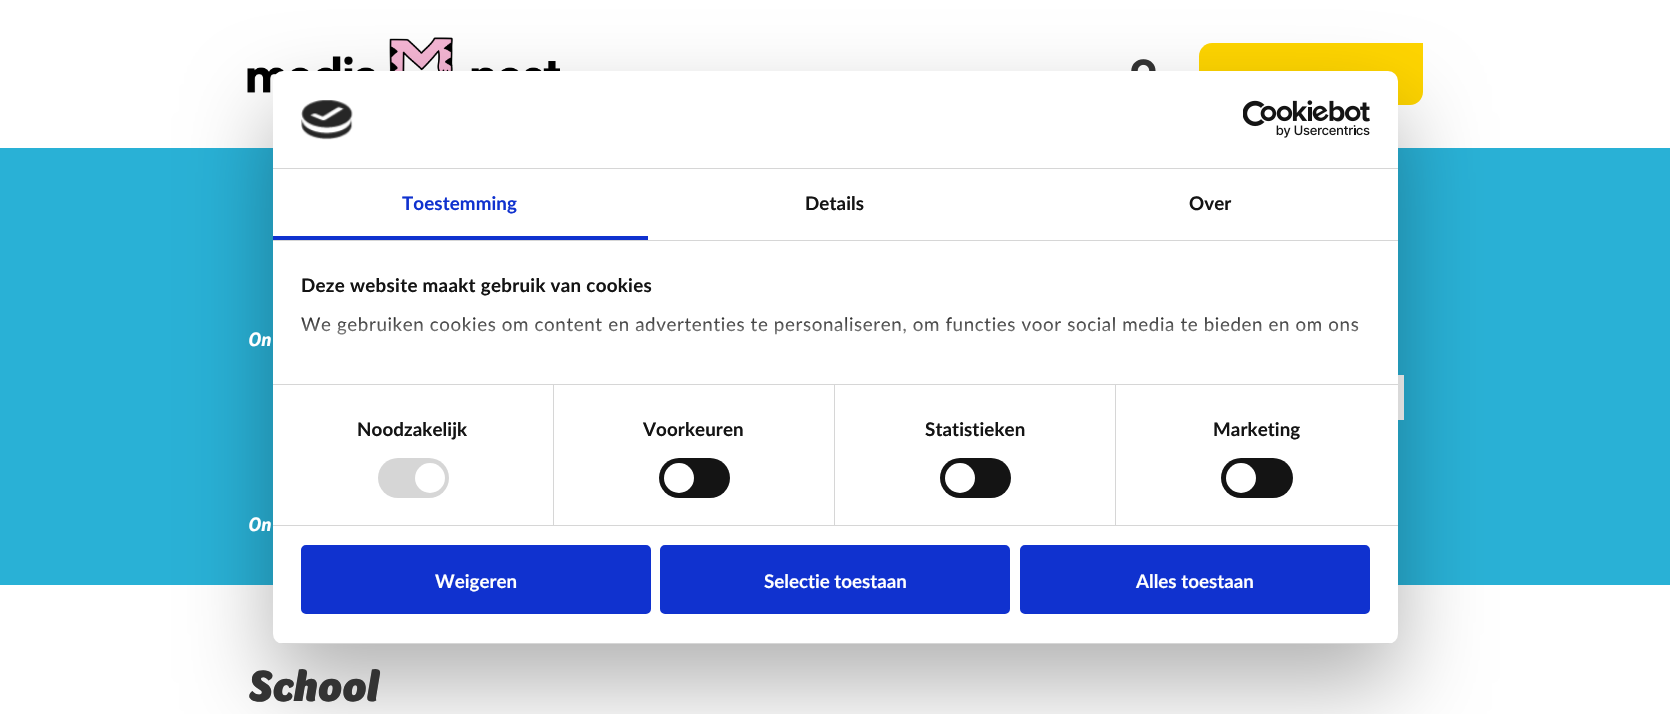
#include "include/core/SkBlurTypes.h"
#include "include/core/SkCanvas.h"
#include "include/core/SkData.h"
#include "include/core/SkFont.h"
#include "include/core/SkFontMgr.h"
#include "include/core/SkImage.h"
#include "include/core/SkMaskFilter.h"
#include "include/core/SkPaint.h"
#include "include/core/SkPathBuilder.h"
#include "include/core/SkTextBlob.h"
#include "include/effects/SkDashPathEffect.h"
#include "include/effects/SkGradientShader.h"
#include "include/utils/SkParsePath.h"

extern sk_sp<SkFontMgr> fontMgr;

static SkFont font(const char* family, int weight, float size, bool italic = false) {
    SkFontStyle style(weight, SkFontStyle::kNormal_Width,
        italic ? SkFontStyle::kItalic_Slant : SkFontStyle::kUpright_Slant);
    SkFont result(fontMgr->matchFamilyStyle(family, style), size);
    result.setSubpixel(true);
    return result;
}

static void drawLabel(SkCanvas* canvas, const char* s, float x, float y, const SkFont& font, SkColor color) {
    SkPaint ink(SkColor4f::FromColor(color));
    ink.setAntiAlias(true);
    canvas->drawString(s, x, y, font, ink);
}

static void drawTracked(SkCanvas* canvas, const char* s, float x, float y, const SkFont& font, const SkPaint& ink, float letter, float word) {
    std::vector<SkGlyphID> glyphs(font.countText(s, strlen(s), SkTextEncoding::kUTF8));
    std::vector<float> xs(glyphs.size());
    font.textToGlyphs(s, strlen(s), SkTextEncoding::kUTF8, glyphs);
    font.getXPos(glyphs, xs, x);
    float extra = 0;
    for (size_t i = 0; i < glyphs.size(); i++) {
        xs[i] += extra;
        extra += letter + word * (glyphs[i] == font.unicharToGlyph(' '));
    }
    canvas->drawTextBlob(SkTextBlob::MakeFromPosHGlyphs(glyphs, xs, y, font), 0, 0, ink);
}

static void fillRect(SkCanvas* canvas, float x, float y, float w, float h, SkColor color) {
    SkPaint ink(SkColor4f::FromColor(color));
    ink.setAntiAlias(true);
    canvas->drawRect(SkRect::MakeXYWH(x, y, w, h), ink);
}

static void fillRRect(SkCanvas* canvas, float x, float y, float w, float h, float radius, SkColor color) {
    SkPaint ink(SkColor4f::FromColor(color));
    ink.setAntiAlias(true);
    canvas->drawRoundRect(SkRect::MakeXYWH(x, y, w, h), radius, radius, ink);
}

static void drawPhoto(SkCanvas* canvas, const char* path, float x, float y, float w, float h) {
    auto image = SkImages::DeferredFromEncodedData(SkData::MakeFromFileName(path));
    canvas->drawImageRect(image, SkRect::MakeXYWH(x, y, w, h), SkSamplingOptions());
}

static SkPath parsePath(const char* data, bool evenOdd = false) {
    SkPath result = *SkParsePath::FromSVGString(data);
    if (evenOdd) result.setFillType(SkPathFillType::kEvenOdd);
    return result;
}

void draw(SkCanvas* canvas) {
    SkPaint paint;
    paint.setAntiAlias(true);
    canvas->clear(0xFFFFFFFF);
    drawPhoto(canvas, "assets/img3.png", 247, 37, 313, 56);
    drawPhoto(canvas, "assets/img4.png", 1131, 59, 25, 12);
    paint.setColor(0xFFFFD500);
    canvas->drawPath(parsePath("M1212 43H1423V92C1423 99 1417 105 1410 105H1199V56C1199 49 1205 43 1212 43Z"), paint);
    fillRect(canvas, 0, 148, 1670, 437, 0xFF29B1D6);
    fillRect(canvas, 1398, 375, 6, 45, 0xFFFFFFFF);
    paint.setColor(0x4D000000);
    paint.setMaskFilter(SkMaskFilter::MakeBlur(kNormal_SkBlurStyle, 42.5f));
    canvas->drawRoundRect(SkRect::MakeXYWH(273, 111, 1125, 573), 10, 10, paint);
    paint.setMaskFilter(nullptr);
    fillRRect(canvas, 273, 71, 1125, 573, 10, 0xFFFFFFFF);
    fillRect(canvas, 273, 168, 1125, 1, 0xFFD6D6D6);
    drawPhoto(canvas, "assets/img1.png", 301, 100, 52, 40);
    drawPhoto(canvas, "assets/img2.png", 1243, 100, 127, 38);
    fillRect(canvas, 273, 240, 1125, 1, 0xFFD6D6D6);
    fillRect(canvas, 273, 236, 375, 4, 0xFF1032CF);
    SkFont font1 = font("Lato", 700, 18.75f);
    paint.setColor(0xFF1032CF);
    drawTracked(canvas, "Toestemming", 402, 210, font1, paint, 0.1f, 0);
    paint.setColor(0xFF141414);
    drawTracked(canvas, "Details", 805, 210, font1, paint, 0.1f, 0);
    drawTracked(canvas, "Over", 1189, 210, font1, paint, 0.1f, 0);
    fillRect(canvas, 273, 384, 1125, 1, 0xFFD6D6D6);
    drawTracked(canvas, "Deze website maakt gebruik van cookies", 301, 292, font1, paint, 0.3f, 0);
    SkFont font2 = font("Lato", 400, 18.75f);
    drawTracked(canvas, "We gebruiken cookies om content en advertenties te personaliseren, om functies voor social media te bieden en om ons", 301, 331, font2, paint, 0.62f, 0);
    {
        const SkColor colors[] = {0xFFFFFFFF, 0xCCFFFFFF, 0x00FFFFFF};
        const float stops[] = {0, 0.5f, 1};
        const SkPoint ends[] = {{823, 384}, {823, 313}};
        paint.setShader(SkGradientShader::MakeLinear(ends, colors, stops, 3, SkTileMode::kClamp));
        paint.setAlpha(255);
    }
    canvas->drawRect(SkRect::MakeXYWH(301, 317, 1058, 18), paint);
    fillRect(canvas, 273, 525, 1125, 1, 0xFFD6D6D6);
    fillRect(canvas, 553, 385, 1, 140, 0xFFD6D6D6);
    paint.setShader(nullptr);
    paint.setColor(0xFF141414);
    drawTracked(canvas, "Noodzakelijk", 357, 436, font1, paint, 0.1f, 0);
    fillRRect(canvas, 378, 458, 71, 40, 20, 0xFFD6D6D6);
    paint.setColor(0xFFFFFFFF);
    canvas->drawCircle(430, 478, 15, paint);
    fillRect(canvas, 834, 385, 1, 140, 0xFFD6D6D6);
    paint.setColor(0xFF141414);
    drawTracked(canvas, "Voorkeuren", 643, 436, font1, paint, 0.1f, 0);
    fillRRect(canvas, 659, 458, 71, 40, 20, 0xFF141414);
    paint.setColor(0xFFFFFFFF);
    canvas->drawCircle(679, 478, 15, paint);
    fillRect(canvas, 1115, 385, 1, 140, 0xFFD6D6D6);
    paint.setColor(0xFF141414);
    drawTracked(canvas, "Statistieken", 925, 436, font1, paint, 0.1f, 0);
    fillRRect(canvas, 940, 458, 71, 40, 20, 0xFF141414);
    paint.setColor(0xFFFFFFFF);
    canvas->drawCircle(960, 478, 15, paint);
    paint.setColor(0xFF141414);
    drawTracked(canvas, "Marketing", 1213, 436, font1, paint, 0.1f, 0);
    fillRRect(canvas, 1221, 458, 72, 40, 20, 0xFF141414);
    paint.setColor(0xFFFFFFFF);
    canvas->drawCircle(1241, 478, 15, paint);
    canvas->save();
    canvas->clipPath(parsePath("M283 71H1388C1393.5 71 1398 75.5 1398 81V634C1398 639.5 1393.5 644 1388 644H283C277.5 644 273 639.5 273 634V81C273 75.5 277.5 71 283 71Z"), true);
    fillRect(canvas, 273, 643, 1125, 1, 0xFFD6D6D6);
    canvas->restore();
    paint.setColor(0xFF1032CF);
    canvas->drawRoundRect(SkRect::MakeXYWH(302.5f, 546.5f, 347, 66), 3.5f, 3.5f, paint);
    paint.setStroke(true);
    paint.setStrokeWidth(3);
    canvas->drawRoundRect(SkRect::MakeXYWH(302.5f, 546.5f, 347, 66), 3.5f, 3.5f, paint);
    drawLabel(canvas, "Weigeren", 435, 588, font1, 0xFFFFFFFF);
    paint.setStroke(false);
    canvas->drawRoundRect(SkRect::MakeXYWH(661.5f, 546.5f, 347, 66), 3.5f, 3.5f, paint);
    paint.setStroke(true);
    canvas->drawRoundRect(SkRect::MakeXYWH(661.5f, 546.5f, 347, 66), 3.5f, 3.5f, paint);
    drawLabel(canvas, "Selectie toestaan", 764, 588, font1, 0xFFFFFFFF);
    paint.setStroke(false);
    canvas->drawRoundRect(SkRect::MakeXYWH(1021.5f, 546.5f, 347, 66), 3.5f, 3.5f, paint);
    paint.setStroke(true);
    canvas->drawRoundRect(SkRect::MakeXYWH(1021.5f, 546.5f, 347, 66), 3.5f, 3.5f, paint);
    drawLabel(canvas, "Alles toestaan", 1136, 588, font1, 0xFFFFFFFF);
    SkFont font3 = font("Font", 700, 20, true);
    drawLabel(canvas, "On", 248, 346, font3, 0xFFFFFFFF);
    drawLabel(canvas, "On", 248, 531, font3, 0xFFFFFFFF);
    SkFont font4 = font("Font", 900, 45, true);
    drawLabel(canvas, "School", 248, 701, font4, 0xFF333333);
}
